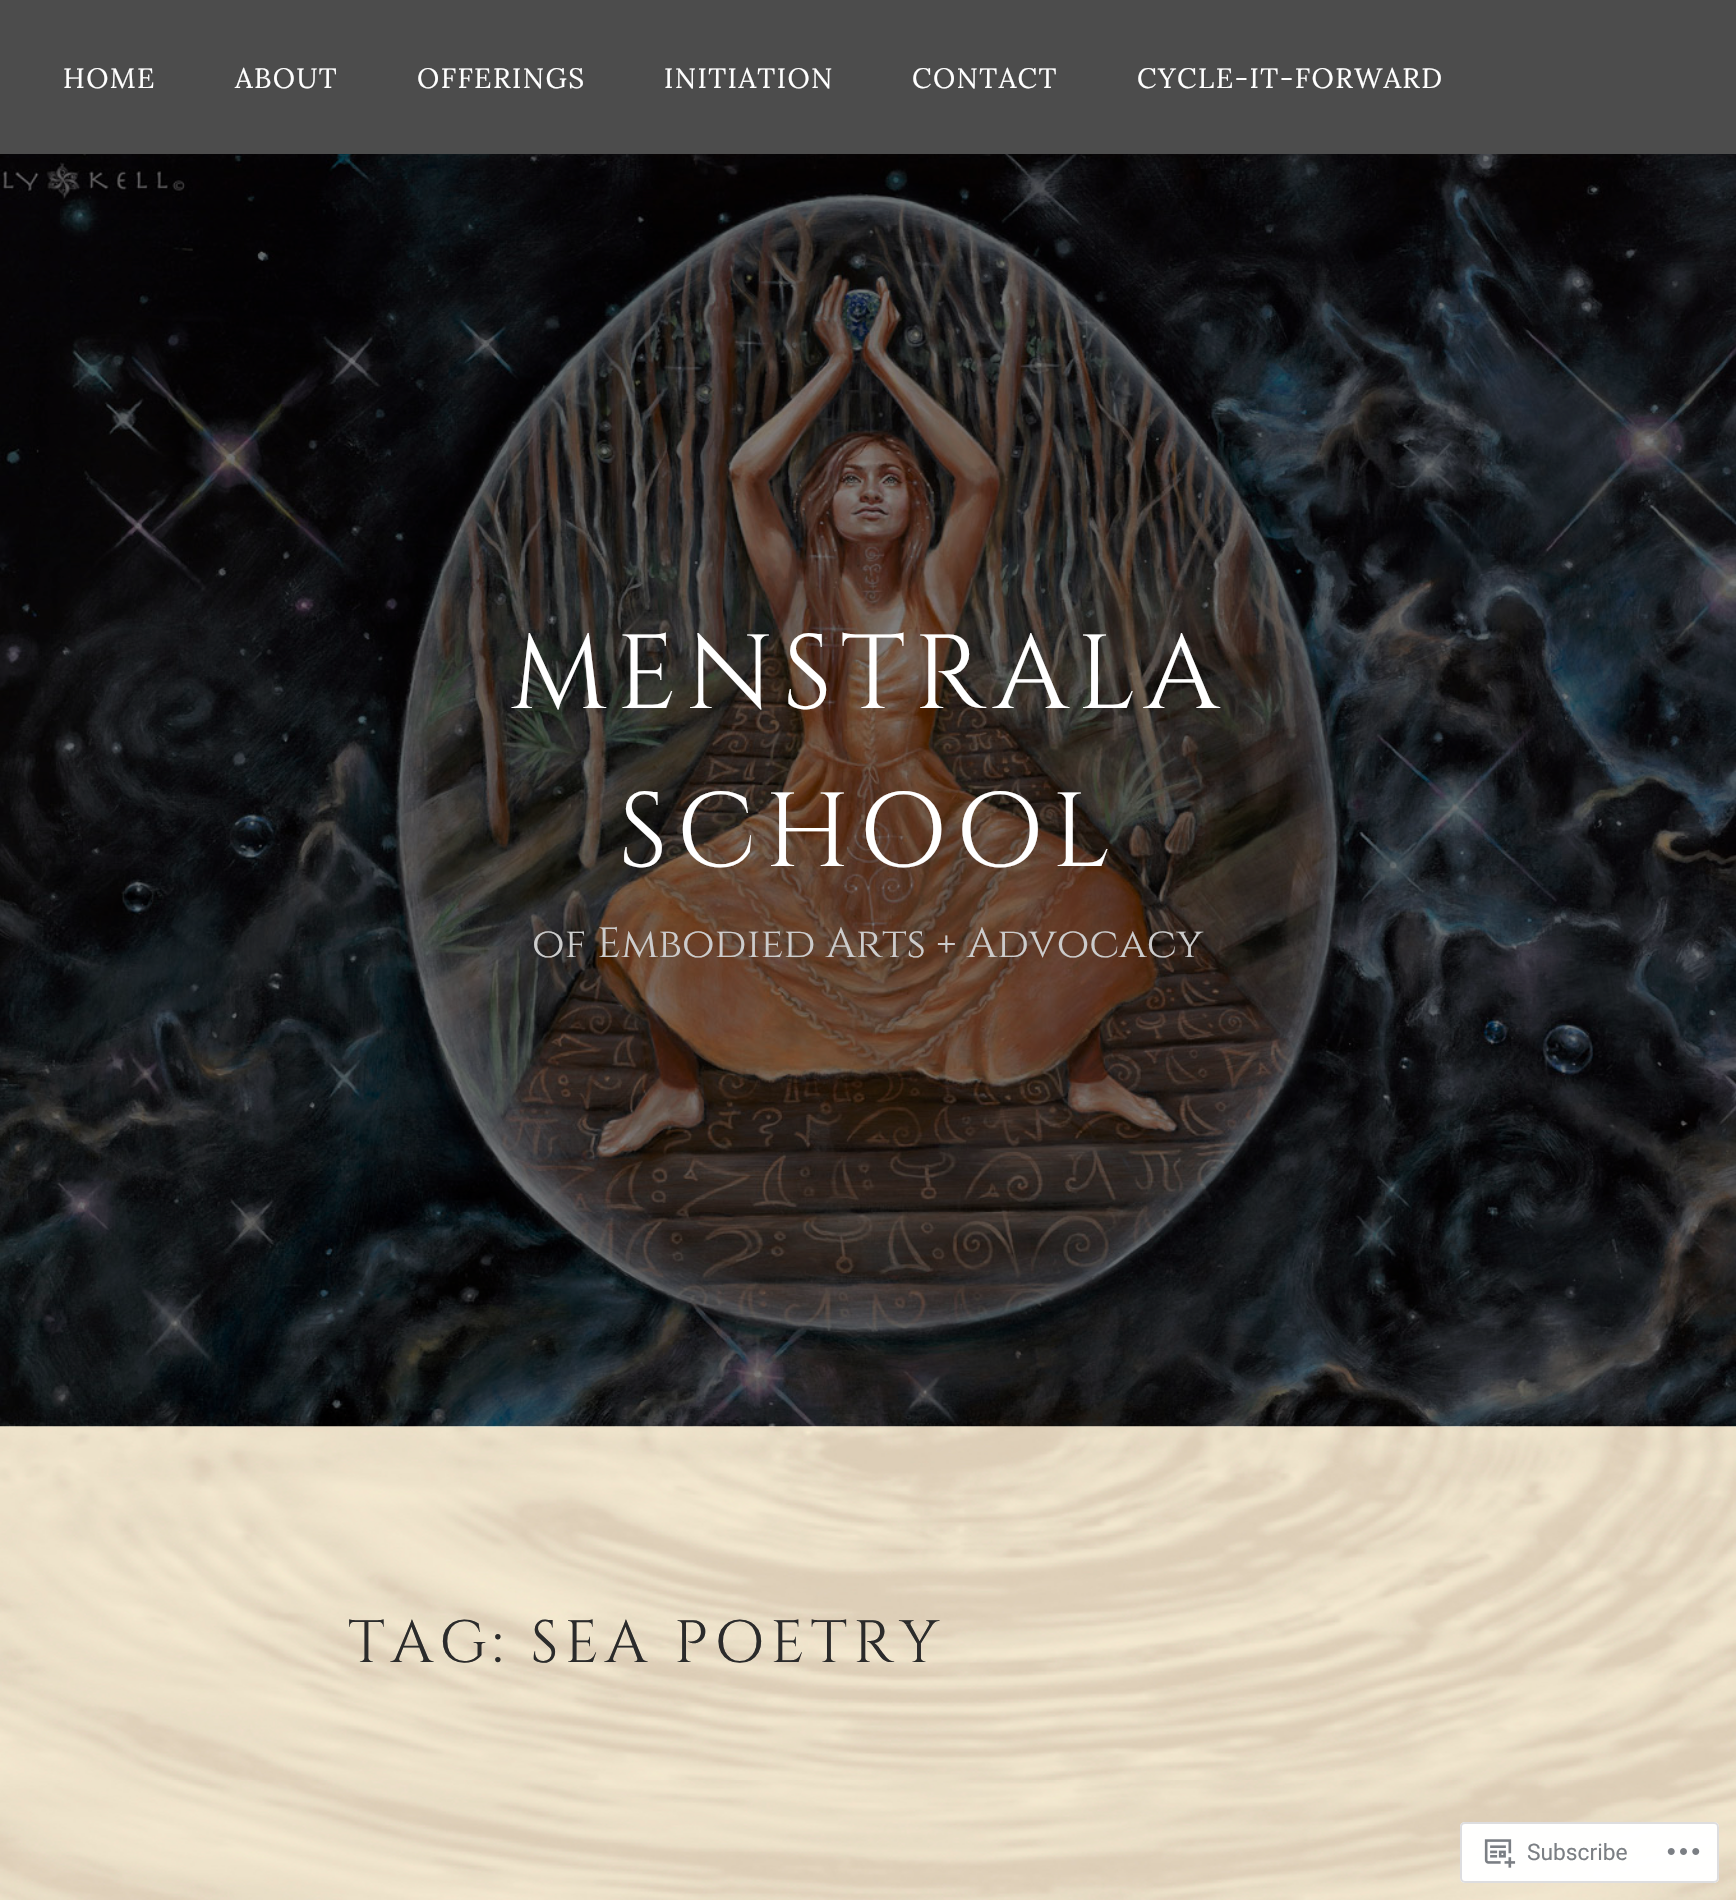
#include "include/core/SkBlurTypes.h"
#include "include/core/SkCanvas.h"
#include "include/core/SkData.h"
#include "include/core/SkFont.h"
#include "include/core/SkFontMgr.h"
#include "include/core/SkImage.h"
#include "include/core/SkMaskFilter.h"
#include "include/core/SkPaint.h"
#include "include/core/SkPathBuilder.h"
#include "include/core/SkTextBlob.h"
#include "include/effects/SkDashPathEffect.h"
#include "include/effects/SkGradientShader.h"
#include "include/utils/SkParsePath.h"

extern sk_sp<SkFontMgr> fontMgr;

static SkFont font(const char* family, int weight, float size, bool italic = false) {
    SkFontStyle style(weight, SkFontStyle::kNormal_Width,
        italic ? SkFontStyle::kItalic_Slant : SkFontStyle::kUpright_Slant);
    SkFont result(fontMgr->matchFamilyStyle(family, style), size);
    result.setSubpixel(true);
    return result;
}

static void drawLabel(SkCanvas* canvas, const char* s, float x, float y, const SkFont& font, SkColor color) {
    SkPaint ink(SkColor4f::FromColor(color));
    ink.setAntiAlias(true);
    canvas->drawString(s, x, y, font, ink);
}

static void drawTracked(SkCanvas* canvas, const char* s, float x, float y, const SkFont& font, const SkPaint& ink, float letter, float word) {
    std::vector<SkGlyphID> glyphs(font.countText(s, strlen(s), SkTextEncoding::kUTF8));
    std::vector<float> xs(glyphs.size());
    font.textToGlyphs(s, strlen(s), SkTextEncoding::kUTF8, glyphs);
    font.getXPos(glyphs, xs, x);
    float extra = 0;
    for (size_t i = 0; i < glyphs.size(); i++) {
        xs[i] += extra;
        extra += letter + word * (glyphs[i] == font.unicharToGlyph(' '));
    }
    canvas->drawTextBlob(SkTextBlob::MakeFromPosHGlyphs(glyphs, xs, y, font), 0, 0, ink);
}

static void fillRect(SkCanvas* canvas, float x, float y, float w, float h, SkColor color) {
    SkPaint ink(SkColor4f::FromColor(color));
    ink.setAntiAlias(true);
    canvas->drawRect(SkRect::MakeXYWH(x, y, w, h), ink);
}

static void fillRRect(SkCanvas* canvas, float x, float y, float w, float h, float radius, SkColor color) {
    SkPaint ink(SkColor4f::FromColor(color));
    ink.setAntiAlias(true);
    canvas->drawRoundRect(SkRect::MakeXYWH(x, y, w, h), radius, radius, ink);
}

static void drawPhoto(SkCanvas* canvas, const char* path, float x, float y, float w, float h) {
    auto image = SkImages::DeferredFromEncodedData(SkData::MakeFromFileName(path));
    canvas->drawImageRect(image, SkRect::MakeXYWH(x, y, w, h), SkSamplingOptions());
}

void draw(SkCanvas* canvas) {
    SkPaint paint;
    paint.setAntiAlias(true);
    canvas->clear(0xFFFFFFFF);
    drawPhoto(canvas, "assets/img1.png", 0, 1426, 1736, 474);
    fillRect(canvas, 0, 0, 1736, 154, 0xFF4C4C4C);
    SkFont font1 = font("Lora", 400, 28);
    paint.setColor(0xFFFFFFFF);
    drawTracked(canvas, "HOME", 63, 88, font1, paint, 1.4f, 0);
    drawTracked(canvas, "ABOUT", 235, 88, font1, paint, 1.4f, 0);
    drawTracked(canvas, "OFFERINGS", 417, 88, font1, paint, 1.4f, 0);
    drawTracked(canvas, "INITIATION", 664, 88, font1, paint, 1.4f, 0);
    drawTracked(canvas, "CONTACT", 912, 88, font1, paint, 1.4f, 0);
    drawTracked(canvas, "CYCLE-IT-FORWARD", 1137, 88, font1, paint, 1.4f, 0);
    drawPhoto(canvas, "assets/img2.png", 0, 154, 1736, 1273);
    SkFont font2 = font("Cinzel", 400, 105);
    drawTracked(canvas, "MENSTRALA", 510, 708, font2, paint, 8.5f, 0);
    drawTracked(canvas, "SCHOOL", 618, 866, font2, paint, 8.5f, 0);
    SkFont font3 = font("Cinzel", 400, 42);
    drawLabel(canvas, "of Embodied Arts + Advocacy", 532, 957, font3, 0xFFCCCCCC);
    SkFont font4 = font("Cinzel", 400, 59.5f);
    paint.setColor(0xFF2B2B2B);
    drawTracked(canvas, "TAG: SEA POETRY", 348, 1662, font4, paint, 6, 0);
    fillRRect(canvas, 1460, 1822, 259, 61, 5, 0xFAFFFFFF);
    paint.setStroke(true);
    paint.setStrokeWidth(2);
    paint.setColor(0xFADCDCDE);
    canvas->drawRoundRect(SkRect::MakeXYWH(1461, 1823, 257, 59), 4, 4, paint);
    drawPhoto(canvas, "assets/img3.png", 1484, 1839, 32, 29);
    SkFont font5 = font("Roboto", 400, 22.75f);
    drawLabel(canvas, "Subscribe", 1527, 1860, font5, 0xFF7B7F84);
    drawPhoto(canvas, "assets/img4.png", 1667, 1848, 33, 7);
}
